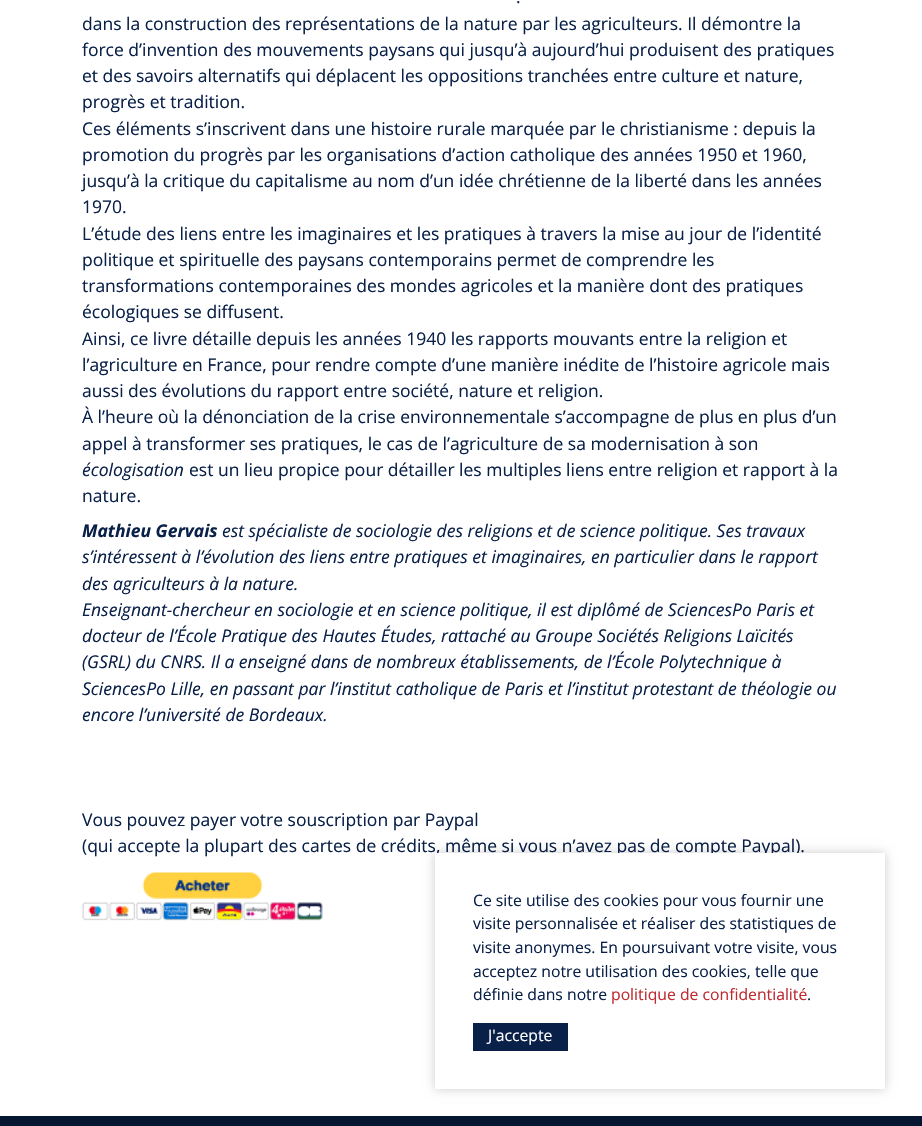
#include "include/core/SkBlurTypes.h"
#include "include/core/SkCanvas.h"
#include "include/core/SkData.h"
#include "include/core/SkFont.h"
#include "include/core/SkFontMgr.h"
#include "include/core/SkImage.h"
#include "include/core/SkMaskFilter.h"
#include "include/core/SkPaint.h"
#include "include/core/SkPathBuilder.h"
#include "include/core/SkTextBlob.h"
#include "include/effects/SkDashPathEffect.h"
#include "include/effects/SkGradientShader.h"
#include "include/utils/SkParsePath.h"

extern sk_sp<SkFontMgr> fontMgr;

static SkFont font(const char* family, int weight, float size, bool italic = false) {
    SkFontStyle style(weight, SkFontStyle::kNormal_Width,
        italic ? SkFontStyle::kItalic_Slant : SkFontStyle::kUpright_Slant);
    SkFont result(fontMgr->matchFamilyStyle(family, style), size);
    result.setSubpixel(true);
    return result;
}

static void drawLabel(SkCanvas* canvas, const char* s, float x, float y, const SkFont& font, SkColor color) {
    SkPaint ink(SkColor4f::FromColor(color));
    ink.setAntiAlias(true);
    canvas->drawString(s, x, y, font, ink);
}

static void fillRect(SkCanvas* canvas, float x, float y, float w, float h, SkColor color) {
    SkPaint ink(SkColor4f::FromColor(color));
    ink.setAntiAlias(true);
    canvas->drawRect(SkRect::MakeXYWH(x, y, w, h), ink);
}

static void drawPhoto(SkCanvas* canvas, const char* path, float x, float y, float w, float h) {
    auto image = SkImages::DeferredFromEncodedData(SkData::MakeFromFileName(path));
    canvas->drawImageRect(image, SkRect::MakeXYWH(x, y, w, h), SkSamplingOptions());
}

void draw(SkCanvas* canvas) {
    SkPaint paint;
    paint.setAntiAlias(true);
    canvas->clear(0xFFFFFFFF);
    SkFont font1 = font("Open Sans", 400, 17.5f);
    drawLabel(canvas, ".", 516, 3, font1, 0xFF092048);
    drawLabel(canvas, "dans la construction des représentations de la nature par les agriculteurs. Il démontre la", 82, 30, font1, 0xFF092048);
    drawLabel(canvas, "force d’invention des mouvements paysans qui jusqu’à aujourd’hui produisent des pratiques", 82, 56, font1, 0xFF092048);
    drawLabel(canvas, "et des savoirs alternatifs qui déplacent les oppositions tranchées entre culture et nature,", 82, 82, font1, 0xFF092048);
    drawLabel(canvas, "progrès et tradition.", 82, 108, font1, 0xFF092048);
    drawLabel(canvas, "Ces éléments s’inscrivent dans une histoire rurale marquée par le christianisme : depuis la", 82, 135, font1, 0xFF092048);
    drawLabel(canvas, "promotion du progrès par les organisations d’action catholique des années 1950 et 1960,", 82, 161, font1, 0xFF092048);
    drawLabel(canvas, "jusqu’à la critique du capitalisme au nom d’un idée chrétienne de la liberté dans les années", 82, 187, font1, 0xFF092048);
    drawLabel(canvas, "1970.", 82, 213, font1, 0xFF092048);
    drawLabel(canvas, "L’étude des liens entre les imaginaires et les pratiques à travers la mise au jour de l’identité", 82, 240, font1, 0xFF092048);
    drawLabel(canvas, "politique et spirituelle des paysans contemporains permet de comprendre les", 82, 266, font1, 0xFF092048);
    drawLabel(canvas, "transformations contemporaines des mondes agricoles et la manière dont des pratiques", 82, 292, font1, 0xFF092048);
    drawLabel(canvas, "écologiques se diffusent.", 82, 318, font1, 0xFF092048);
    drawLabel(canvas, "Ainsi, ce livre détaille depuis les années 1940 les rapports mouvants entre la religion et", 82, 345, font1, 0xFF092048);
    drawLabel(canvas, "l’agriculture en France, pour rendre compte d’une manière inédite de l’histoire agricole mais", 82, 371, font1, 0xFF092048);
    drawLabel(canvas, "aussi des évolutions du rapport entre société, nature et religion.", 82, 397, font1, 0xFF092048);
    drawLabel(canvas, "À l’heure où la dénonciation de la crise environnementale s’accompagne de plus en plus d’un", 82, 423, font1, 0xFF092048);
    drawLabel(canvas, "appel à transformer ses pratiques, le cas de l’agriculture de sa modernisation à son", 82, 450, font1, 0xFF092048);
    SkFont font2 = font("Open Sans", 400, 17.5f, true);
    drawLabel(canvas, "écologisation", 82, 476, font2, 0xFF092048);
    drawLabel(canvas, "est un lieu propice pour détailler les multiples liens entre religion et rapport à la", 189, 476, font1, 0xFF092048);
    drawLabel(canvas, "nature.", 82, 502, font1, 0xFF092048);
    SkFont font3 = font("Open Sans", 700, 17.5f, true);
    drawLabel(canvas, "Mathieu Gervais", 82, 537, font3, 0xFF092048);
    drawLabel(canvas, "est spécialiste de sociologie des religions et de science politique. Ses travaux", 222, 537, font2, 0xFF092048);
    drawLabel(canvas, "s’intéressent à l’évolution des liens entre pratiques et imaginaires, en particulier dans le rapport", 82, 563, font2, 0xFF092048);
    drawLabel(canvas, "des agriculteurs à la nature.", 82, 590, font2, 0xFF092048);
    drawLabel(canvas, "Enseignant-chercheur en sociologie et en science politique, il est diplômé de SciencesPo Paris et", 82, 616, font2, 0xFF092048);
    drawLabel(canvas, "docteur de l’École Pratique des Hautes Études, rattaché au Groupe Sociétés Religions Laïcités", 82, 642, font2, 0xFF092048);
    drawLabel(canvas, "(GSRL) du CNRS. Il a enseigné dans de nombreux établissements, de l’École Polytechnique à", 82, 668, font2, 0xFF092048);
    drawLabel(canvas, "SciencesPo Lille, en passant par l’institut catholique de Paris et l’institut protestant de théologie ou", 82, 695, font2, 0xFF092048);
    drawLabel(canvas, "encore l’université de Bordeaux.", 82, 721, font2, 0xFF092048);
    drawLabel(canvas, "Vous pouvez payer votre souscription par Paypal", 82, 826, font1, 0xFF092048);
    drawLabel(canvas, "(qui accepte la plupart des cartes de crédits, même si vous n’avez pas de compte Paypal).", 82, 852, font1, 0xFF092048);
    drawPhoto(canvas, "assets/img1.png", 82, 872, 241, 49);
    paint.setColor(0x33000000);
    paint.setMaskFilter(SkMaskFilter::MakeBlur(kNormal_SkBlurStyle, 5));
    canvas->drawRect(SkRect::MakeXYWH(435, 853, 450, 236), paint);
    paint.setMaskFilter(nullptr);
    fillRect(canvas, 435, 853, 450, 236, 0xFFFFFFFF);
    SkFont font4 = font("Open Sans", 400, 15.75f);
    drawLabel(canvas, "Ce site utilise des cookies pour vous fournir une", 473, 906, font4, 0xFF092048);
    drawLabel(canvas, "visite personnalisée et réaliser des statistiques de", 473, 929, font4, 0xFF092048);
    drawLabel(canvas, "visite anonymes. En poursuivant votre visite, vous", 473, 953, font4, 0xFF092048);
    drawLabel(canvas, "acceptez notre utilisation des cookies, telle que", 473, 977, font4, 0xFF092048);
    drawLabel(canvas, "définie dans notre", 473, 1000, font4, 0xFF092048);
    drawLabel(canvas, "politique de confidentialité", 611, 1000, font4, 0xFFBE2B31);
    drawLabel(canvas, ".", 807, 1000, font4, 0xFF092048);
    fillRect(canvas, 473, 1023, 95, 28, 0xFF092048);
    drawLabel(canvas, "J'accepte", 488, 1041, font4, 0xFFFFFFFF);
    fillRect(canvas, 0, 1116, 922, 10, 0xFF061631);
}
